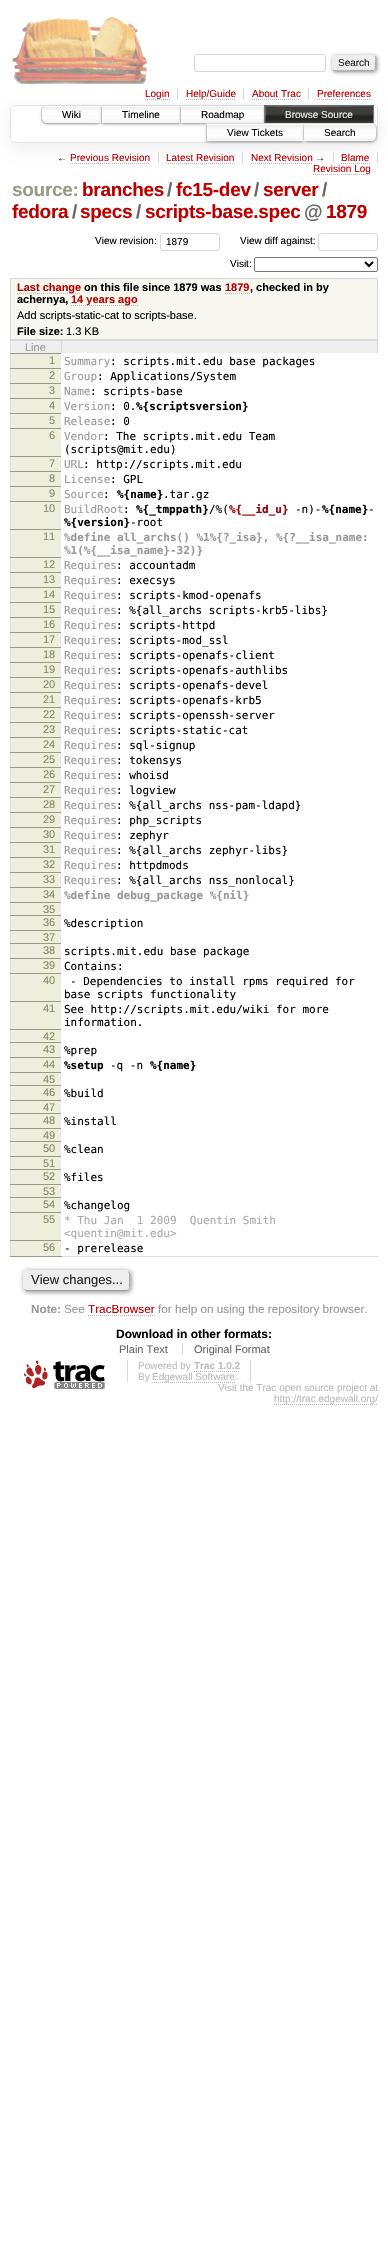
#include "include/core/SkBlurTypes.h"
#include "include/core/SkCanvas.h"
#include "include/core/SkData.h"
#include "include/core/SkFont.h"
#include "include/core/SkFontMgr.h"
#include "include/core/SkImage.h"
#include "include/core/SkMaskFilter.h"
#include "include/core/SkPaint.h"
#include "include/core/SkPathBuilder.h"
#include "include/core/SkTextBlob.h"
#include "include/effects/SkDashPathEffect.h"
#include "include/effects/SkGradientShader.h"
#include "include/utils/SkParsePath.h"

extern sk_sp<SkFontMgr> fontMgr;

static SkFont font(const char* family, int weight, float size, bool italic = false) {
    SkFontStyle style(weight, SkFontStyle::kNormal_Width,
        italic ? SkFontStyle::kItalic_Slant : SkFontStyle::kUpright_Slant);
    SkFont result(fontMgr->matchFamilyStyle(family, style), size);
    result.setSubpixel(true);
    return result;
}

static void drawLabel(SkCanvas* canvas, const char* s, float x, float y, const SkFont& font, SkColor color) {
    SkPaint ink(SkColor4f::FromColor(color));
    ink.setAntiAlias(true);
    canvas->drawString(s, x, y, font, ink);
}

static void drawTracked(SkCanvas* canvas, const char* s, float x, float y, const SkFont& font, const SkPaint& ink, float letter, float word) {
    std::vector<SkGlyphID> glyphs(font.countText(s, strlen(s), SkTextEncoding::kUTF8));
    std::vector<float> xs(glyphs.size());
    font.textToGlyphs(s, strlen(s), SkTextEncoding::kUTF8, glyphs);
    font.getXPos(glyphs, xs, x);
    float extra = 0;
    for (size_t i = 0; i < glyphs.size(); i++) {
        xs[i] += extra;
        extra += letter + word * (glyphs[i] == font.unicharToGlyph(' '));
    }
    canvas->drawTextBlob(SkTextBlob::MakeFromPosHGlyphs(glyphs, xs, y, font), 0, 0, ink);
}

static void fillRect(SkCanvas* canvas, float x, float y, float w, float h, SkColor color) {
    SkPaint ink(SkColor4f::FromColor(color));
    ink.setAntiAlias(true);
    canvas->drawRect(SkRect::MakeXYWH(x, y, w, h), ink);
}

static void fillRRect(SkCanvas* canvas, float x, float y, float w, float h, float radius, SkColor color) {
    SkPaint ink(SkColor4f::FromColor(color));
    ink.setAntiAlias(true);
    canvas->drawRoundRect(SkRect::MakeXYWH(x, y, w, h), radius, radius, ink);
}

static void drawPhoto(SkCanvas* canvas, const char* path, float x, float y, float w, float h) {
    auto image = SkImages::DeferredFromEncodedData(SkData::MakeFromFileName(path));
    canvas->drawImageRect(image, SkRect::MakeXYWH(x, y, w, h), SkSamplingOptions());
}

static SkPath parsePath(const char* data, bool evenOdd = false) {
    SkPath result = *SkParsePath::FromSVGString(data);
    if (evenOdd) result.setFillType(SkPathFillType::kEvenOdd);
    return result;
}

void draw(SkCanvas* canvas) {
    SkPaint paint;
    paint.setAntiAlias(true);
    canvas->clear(0xFFFFFFFF);
    drawPhoto(canvas, "assets/img1.png", 12, 17, 135, 68);
    paint.setStroke(true);
    paint.setStrokeWidth(1);
    paint.setColor(0xFFD7D7D7);
    canvas->drawRoundRect(SkRect::MakeXYWH(194.5f, 54.5f, 131, 17), 2.5f, 2.5f, paint);
    paint.setStroke(false);
    paint.setColor(0xFF888888);
    paint.setMaskFilter(SkMaskFilter::MakeBlur(kNormal_SkBlurStyle, 2));
    canvas->drawRoundRect(SkRect::MakeXYWH(333, 56, 44, 16), 3, 3, paint);
    paint.setMaskFilter(nullptr);
    fillRRect(canvas, 332, 55, 44, 16, 3, 0xFFEEEEEE);
    paint.setStroke(true);
    paint.setColor(0xFF9F9F9F);
    canvas->drawPath(parsePath("M375 56C376.5 58 375.5 61 375.5 63C375.5 71.5 376 70.5 366.5 70.5H354C351 70.5 335 71.5 333 70"), paint);
    paint.setColor(0xFFEEEEEE);
    canvas->drawPath(parsePath("M333 70C331.5 68 332.5 65 332.5 63C332.5 54.5 332 55.5 341.5 55.5H354C357 55.5 373 54.5 375 56"), paint);
    SkFont font1 = font("Liberation Sans", 400, 10);
    drawLabel(canvas, "Search", 338, 66, font1, 0xFF222222);
    canvas->save();
    canvas->clipPath(parsePath("M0 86H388V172H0ZM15 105H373C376 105 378 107 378 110V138C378 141 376 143 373 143H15C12 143 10 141 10 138V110C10 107 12 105 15 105Z", true), true);
    paint.setStroke(false);
    paint.setMaskFilter(SkMaskFilter::MakeBlur(kNormal_SkBlurStyle, 7.5f));
    canvas->drawRoundRect(SkRect::MakeXYWH(10, 110, 368, 38), 5, 5, paint);
    paint.setMaskFilter(nullptr);
    canvas->restore();
    fillRect(canvas, 177, 88, 1, 11, 0xFFD7D7D7);
    paint.setStroke(true);
    paint.setColor(0xFFBBBBBB);
    paint.setPathEffect(SkDashPathEffect::Make({{1, 1}}, 0));
    canvas->drawPath(parsePath("M145 99.5H170"), paint);
    paint.setPathEffect(nullptr);
    drawLabel(canvas, "Login", 145, 97, font1, 0xFFBB0000);
    fillRect(canvas, 243, 88, 1, 11, 0xFFD7D7D7);
    paint.setPathEffect(SkDashPathEffect::Make({{1, 1}}, 0));
    canvas->drawPath(parsePath("M186 99.5H236"), paint);
    paint.setPathEffect(nullptr);
    drawLabel(canvas, "Help/Guide", 186, 97, font1, 0xFFBB0000);
    fillRect(canvas, 308, 88, 1, 11, 0xFFD7D7D7);
    drawLabel(canvas, "About Trac", 252, 97, font1, 0xFFBB0000);
    paint.setPathEffect(SkDashPathEffect::Make({{1, 1}}, 0));
    canvas->drawPath(parsePath("M252 99.5H301"), paint);
    paint.setPathEffect(nullptr);
    drawLabel(canvas, "Preferences", 317, 97, font1, 0xFFBB0000);
    paint.setPathEffect(SkDashPathEffect::Make({{1, 1}}, 0));
    canvas->drawPath(parsePath("M317 99.5H371"), paint);
    paint.setPathEffect(nullptr);
    paint.setColor(0xFFE4E4E4);
    canvas->drawRoundRect(SkRect::MakeXYWH(10.5f, 105.5f, 367, 37), 4.5f, 4.5f, paint);
    paint.setStroke(false);
    paint.setColor(0xFFFFFFFF);
    canvas->drawPath(parsePath("M46 105H102V124H46C43 124 41 122 41 119V110C41 107 43 105 46 105Z"), paint);
    drawPhoto(canvas, "assets/img2.png", 41, 107, 60, 17);
    paint.setStroke(true);
    paint.setColor(0xFFE4E4E4);
    canvas->drawPath(parsePath("M46 105.5H101.5V123.5H46C43.5 123.5 41.5 121.5 41.5 119V110C41.5 107.5 43.5 105.5 46 105.5Z"), paint);
    canvas->save();
    canvas->clipPath(parsePath("M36 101H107V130H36ZM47 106H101V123H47C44 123 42 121 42 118V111C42 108 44 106 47 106Z", true), true);
    paint.setStroke(false);
    paint.setColor(0xFF999999);
    paint.setMaskFilter(SkMaskFilter::MakeBlur(kNormal_SkBlurStyle, 1.5f));
    canvas->drawRoundRect(SkRect::MakeXYWH(42, 107, 59, 17), 5, 5, paint);
    paint.setMaskFilter(nullptr);
    canvas->restore();
    drawLabel(canvas, "Wiki", 62, 118, font1, 0xFF000000);
    fillRect(canvas, 102, 108, 2, 15, 0xFFFFFFFF);
    drawPhoto(canvas, "assets/img3.png", 102, 107, 78, 16);
    paint.setStroke(true);
    paint.setColor(0xFFE4E4E4);
    canvas->drawRect(SkRect::MakeXYWH(101.5f, 105.5f, 79, 18), paint);
    canvas->save();
    canvas->clipPath(parsePath("M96 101H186V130H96ZM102 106H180V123H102Z", true), true);
    paint.setStroke(false);
    paint.setColor(0xFF999999);
    paint.setMaskFilter(SkMaskFilter::MakeBlur(kNormal_SkBlurStyle, 1.5f));
    canvas->drawRect(SkRect::MakeXYWH(102, 107, 78, 17), paint);
    paint.setMaskFilter(nullptr);
    canvas->restore();
    drawLabel(canvas, "Timeline", 122, 118, font1, 0xFF000000);
    fillRect(canvas, 181, 106, 2, 17, 0xFFFFFFFF);
    drawPhoto(canvas, "assets/img4.png", 181, 107, 83, 16);
    paint.setStroke(true);
    paint.setColor(0xFFE4E4E4);
    canvas->drawRect(SkRect::MakeXYWH(180.5f, 105.5f, 84, 18), paint);
    canvas->save();
    canvas->clipPath(parsePath("M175 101H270V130H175ZM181 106H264V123H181Z", true), true);
    paint.setStroke(false);
    paint.setColor(0xFF999999);
    paint.setMaskFilter(SkMaskFilter::MakeBlur(kNormal_SkBlurStyle, 1.5f));
    canvas->drawRect(SkRect::MakeXYWH(181, 107, 83, 17), paint);
    paint.setMaskFilter(nullptr);
    canvas->restore();
    drawLabel(canvas, "Roadmap", 201, 118, font1, 0xFF000000);
    paint.setStroke(true);
    paint.setColor(0xFF666666);
    canvas->drawRect(SkRect::MakeXYWH(264.5f, 105.5f, 109, 18), paint);
    paint.setStroke(false);
    paint.setColor(0xFF999999);
    paint.setMaskFilter(SkMaskFilter::MakeBlur(kNormal_SkBlurStyle, 1.5f));
    canvas->drawRect(SkRect::MakeXYWH(265, 107, 108, 17), paint);
    paint.setMaskFilter(nullptr);
    fillRect(canvas, 265, 106, 108, 17, 0xFF000000);
    drawPhoto(canvas, "assets/img5.png", 265, 106, 108, 17);
    drawLabel(canvas, "Browse Source", 285, 118, font1, 0xFFEEEEEE);
    fillRect(canvas, 207, 124, 96, 3, 0xFFFFFFFF);
    drawPhoto(canvas, "assets/img6.png", 207, 125, 96, 16);
    paint.setStroke(true);
    paint.setColor(0xFFE4E4E4);
    canvas->drawRect(SkRect::MakeXYWH(206.5f, 123.5f, 97, 18), paint);
    canvas->save();
    canvas->clipPath(parsePath("M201 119H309V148H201ZM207 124H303V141H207Z", true), true);
    paint.setStroke(false);
    paint.setColor(0xFF999999);
    paint.setMaskFilter(SkMaskFilter::MakeBlur(kNormal_SkBlurStyle, 1.5f));
    canvas->drawRect(SkRect::MakeXYWH(207, 125, 96, 17), paint);
    paint.setMaskFilter(nullptr);
    canvas->restore();
    drawLabel(canvas, "View Tickets", 227, 136, font1, 0xFF000000);
    paint.setColor(0xFFFFFFFF);
    canvas->drawPath(parsePath("M303 123H372C375 123 377 125 377 128V137C377 140 375 142 372 142H303Z"), paint);
    drawPhoto(canvas, "assets/img7.png", 304, 125, 73, 17);
    paint.setStroke(true);
    paint.setColor(0xFFE4E4E4);
    canvas->drawPath(parsePath("M303.5 123.5H372C374.5 123.5 376.5 125.5 376.5 128V137C376.5 139.5 374.5 141.5 372 141.5H303.5Z"), paint);
    canvas->save();
    canvas->clipPath(parsePath("M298 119H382V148H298ZM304 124H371C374 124 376 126 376 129V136C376 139 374 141 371 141H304Z", true), true);
    paint.setStroke(false);
    paint.setColor(0xFF999999);
    paint.setMaskFilter(SkMaskFilter::MakeBlur(kNormal_SkBlurStyle, 1.5f));
    canvas->drawRoundRect(SkRect::MakeXYWH(304, 125, 72, 17), 5, 5, paint);
    paint.setMaskFilter(nullptr);
    canvas->restore();
    drawLabel(canvas, "Search", 324, 136, font1, 0xFF000000);
    fillRect(canvas, 158, 152, 1, 11, 0xFFD7D7D7);
    drawLabel(canvas, "←", 57, 161, font1, 0xFF000000);
    paint.setStroke(true);
    paint.setColor(0xFFBBBBBB);
    paint.setPathEffect(SkDashPathEffect::Make({{1, 1}}, 0));
    canvas->drawPath(parsePath("M70 163.5H150"), paint);
    paint.setPathEffect(nullptr);
    drawLabel(canvas, "Previous Revision", 70, 161, font1, 0xFFBB0000);
    fillRect(canvas, 242, 152, 1, 11, 0xFFD7D7D7);
    drawLabel(canvas, "Latest Revision", 166, 161, font1, 0xFFBB0000);
    paint.setPathEffect(SkDashPathEffect::Make({{1, 1}}, 0));
    canvas->drawPath(parsePath("M166 163.5H235"), paint);
    paint.setPathEffect(nullptr);
    fillRect(canvas, 333, 152, 1, 11, 0xFFD7D7D7);
    drawLabel(canvas, "Next Revision", 251, 161, font1, 0xFFBB0000);
    paint.setPathEffect(SkDashPathEffect::Make({{1, 1}}, 0));
    canvas->drawPath(parsePath("M251 163.5H312"), paint);
    paint.setPathEffect(nullptr);
    drawLabel(canvas, "→", 315, 161, font1, 0xFF000000);
    fillRect(canvas, 377, 152, 1, 11, 0xFFD7D7D7);
    drawLabel(canvas, "Blame", 341, 161, font1, 0xFFBB0000);
    paint.setPathEffect(SkDashPathEffect::Make({{1, 1}}, 0));
    canvas->drawPath(parsePath("M341 163.5H370"), paint);
    paint.setPathEffect(nullptr);
    paint.setPathEffect(SkDashPathEffect::Make({{1, 1}}, 0));
    canvas->drawPath(parsePath("M313 174.5H371"), paint);
    paint.setPathEffect(nullptr);
    drawLabel(canvas, "Revision Log", 313, 172, font1, 0xFFBB0000);
    SkFont font2 = font("Liberation Sans", 700, 19);
    paint.setStroke(false);
    paint.setColor(0xFF999988);
    drawTracked(canvas, "source:", 12, 196, font2, paint, -0.3f, 0);
    paint.setColor(0xFFBB0000);
    drawTracked(canvas, "branches", 82, 196, font2, paint, -0.3f, 0);
    paint.setColor(0xFF666666);
    drawTracked(canvas, "/", 167, 196, font2, paint, -0.3f, 0);
    paint.setColor(0xFFBB0000);
    drawTracked(canvas, "fc15-dev", 176, 196, font2, paint, -0.3f, 0);
    paint.setColor(0xFF666666);
    drawTracked(canvas, "/", 254, 196, font2, paint, -0.3f, 0);
    paint.setColor(0xFFBB0000);
    drawTracked(canvas, "server", 263, 196, font2, paint, -0.3f, 0);
    paint.setColor(0xFF666666);
    drawTracked(canvas, "/", 322, 196, font2, paint, -0.3f, 0);
    paint.setColor(0xFFBB0000);
    drawTracked(canvas, "fedora", 12, 218, font2, paint, -0.3f, 0);
    paint.setColor(0xFF666666);
    drawTracked(canvas, "/", 72, 218, font2, paint, -0.3f, 0);
    paint.setColor(0xFFBB0000);
    drawTracked(canvas, "specs", 80, 218, font2, paint, -0.3f, 0);
    paint.setColor(0xFF666666);
    drawTracked(canvas, "/", 136, 218, font2, paint, -0.3f, 0);
    paint.setColor(0xFFBB0000);
    drawTracked(canvas, "scripts-base.spec", 145, 218, font2, paint, -0.3f, 0);
    paint.setColor(0xFF666666);
    drawTracked(canvas, "@", 304, 218, font2, paint, -0.3f, 0);
    paint.setColor(0xFFBB0000);
    drawTracked(canvas, "1879", 326, 218, font2, paint, -0.3f, 0);
    drawLabel(canvas, "View revision:", 95, 244, font1, 0xFF000000);
    paint.setStroke(true);
    paint.setColor(0xFFD7D7D7);
    canvas->drawRoundRect(SkRect::MakeXYWH(160.5f, 233.5f, 59, 17), 2.5f, 2.5f, paint);
    drawLabel(canvas, "1879", 166, 245, font1, 0xFF000000);
    drawLabel(canvas, "View diff against:", 240, 244, font1, 0xFF000000);
    canvas->drawRoundRect(SkRect::MakeXYWH(318.5f, 233.5f, 59, 17), 2.5f, 2.5f, paint);
    drawLabel(canvas, "Visit:", 230, 267, font1, 0xFF000000);
    paint.setColor(0xFF767676);
    canvas->drawRoundRect(SkRect::MakeXYWH(254.5f, 257.5f, 123, 14), 1.5f, 1.5f, paint);
    paint.setStrokeWidth(2);
    paint.setColor(0xFF000000);
    canvas->drawPath(parsePath("M365 262L369 266L373 262"), paint);
    fillRect(canvas, 11, 279, 366, 60, 0xFFF7F7F0);
    fillRect(canvas, 10, 278, 368, 1, 0xFFD7D7D7);
    fillRect(canvas, 377, 278, 1, 62, 0xFFD7D7D7);
    fillRect(canvas, 10, 339, 368, 1, 0xFFD7D7D7);
    fillRect(canvas, 10, 278, 1, 62, 0xFFD7D7D7);
    paint.setStrokeWidth(1);
    paint.setColor(0xFFBBBBBB);
    paint.setPathEffect(SkDashPathEffect::Make({{1, 1}}, 0));
    canvas->drawPath(parsePath("M17 293.5H81"), paint);
    paint.setPathEffect(nullptr);
    SkFont font3 = font("Liberation Sans", 700, 11);
    drawLabel(canvas, "Last change", 17, 291, font3, 0xFFBB0000);
    drawLabel(canvas, "on this file since 1879 was", 84, 291, font3, 0xFF000000);
    drawLabel(canvas, "1879", 225, 291, font3, 0xFFBB0000);
    paint.setPathEffect(SkDashPathEffect::Make({{1, 1}}, 0));
    canvas->drawPath(parsePath("M225 293.5H250"), paint);
    paint.setPathEffect(nullptr);
    drawLabel(canvas, ", checked in by", 250, 291, font3, 0xFF000000);
    drawLabel(canvas, "achernya,", 17, 303, font3, 0xFF000000);
    paint.setPathEffect(SkDashPathEffect::Make({{1, 1}}, 0));
    canvas->drawPath(parsePath("M71 305.5H138"), paint);
    paint.setPathEffect(nullptr);
    drawLabel(canvas, "14 years ago", 71, 303, font3, 0xFFBB0000);
    SkFont font4 = font("Liberation Sans", 400, 11);
    drawLabel(canvas, "Add scripts-static-cat to scripts-base.", 17, 319, font4, 0xFF000000);
    drawLabel(canvas, "File size:", 17, 335, font3, 0xFF000000);
    drawLabel(canvas, "1.3 KB", 66, 335, font4, 0xFF000000);
    fillRect(canvas, 62, 1256, 316, 1, 0xFFDDDDDD);
    fillRect(canvas, 10, 340, 1, 917, 0xFFDDDDDD);
    fillRect(canvas, 62, 341, 315, 12, 0xFFEEEEEE);
    fillRect(canvas, 10, 340, 368, 1, 0xFFD7D7D7);
    fillRect(canvas, 377, 340, 1, 14, 0xFFD7D7D7);
    fillRect(canvas, 11, 341, 50, 12, 0xFFEEEEEE);
    fillRect(canvas, 61, 340, 1, 14, 0xFFD7D7D7);
    fillRect(canvas, 10, 353, 52, 1, 0xFF999988);
    drawLabel(canvas, "Line", 25, 351, font4, 0xFF999999);
    fillRect(canvas, 11, 354, 50, 14, 0xFFEEEEDD);
    fillRect(canvas, 10, 368, 52, 1, 0xFF999988);
    drawLabel(canvas, "1", 49, 364, font4, 0xFF888866);
    fillRect(canvas, 61, 353, 317, 16, 0xFFFFFFFF);
    SkFont font5 = font("DejaVu Sans Mono", 400, 11);
    drawLabel(canvas, "Summary", 64, 365, font5, 0xFF999999);
    drawLabel(canvas, ": scripts.mit.edu base packages", 110, 365, font5, 0xFF000000);
    fillRect(canvas, 11, 369, 50, 14, 0xFFEEEEDD);
    fillRect(canvas, 10, 383, 52, 1, 0xFF999988);
    drawLabel(canvas, "2", 49, 379, font4, 0xFF888866);
    fillRect(canvas, 61, 383, 1, 1, 0xFFFFFFFF);
    drawLabel(canvas, "Group", 64, 380, font5, 0xFF999999);
    drawLabel(canvas, ": Applications/System", 97, 380, font5, 0xFF000000);
    fillRect(canvas, 11, 384, 50, 14, 0xFFEEEEDD);
    fillRect(canvas, 10, 398, 52, 1, 0xFF999988);
    drawLabel(canvas, "3", 49, 394, font4, 0xFF888866);
    fillRect(canvas, 61, 398, 1, 1, 0xFFFFFFFF);
    drawLabel(canvas, "Name", 64, 395, font5, 0xFF999999);
    drawLabel(canvas, ": scripts-base", 90, 395, font5, 0xFF000000);
    fillRect(canvas, 11, 399, 50, 14, 0xFFEEEEDD);
    fillRect(canvas, 10, 413, 52, 1, 0xFF999988);
    drawLabel(canvas, "4", 49, 409, font4, 0xFF888866);
    fillRect(canvas, 61, 413, 1, 1, 0xFFFFFFFF);
    drawLabel(canvas, "Version", 64, 410, font5, 0xFF999999);
    drawLabel(canvas, ": 0.", 110, 410, font5, 0xFF000000);
    SkFont font6 = font("DejaVu Sans Mono", 700, 11);
    drawLabel(canvas, "%{scriptsversion}", 136, 410, font6, 0xFF000000);
    fillRect(canvas, 11, 414, 50, 14, 0xFFEEEEDD);
    fillRect(canvas, 10, 428, 52, 1, 0xFF999988);
    drawLabel(canvas, "5", 49, 424, font4, 0xFF888866);
    fillRect(canvas, 61, 428, 1, 1, 0xFFFFFFFF);
    drawLabel(canvas, "Release", 64, 425, font5, 0xFF999999);
    drawLabel(canvas, ": 0", 110, 425, font5, 0xFF000000);
    fillRect(canvas, 11, 429, 50, 27, 0xFFEEEEDD);
    fillRect(canvas, 10, 456, 52, 1, 0xFF999988);
    drawLabel(canvas, "6", 49, 439, font4, 0xFF888866);
    fillRect(canvas, 61, 456, 1, 1, 0xFFFFFFFF);
    drawLabel(canvas, "Vendor", 64, 440, font5, 0xFF999999);
    drawLabel(canvas, ": The scripts.mit.edu Team", 103, 440, font5, 0xFF000000);
    drawLabel(canvas, "(scripts@mit.edu)", 64, 453, font5, 0xFF000000);
    fillRect(canvas, 11, 457, 50, 14, 0xFFEEEEDD);
    fillRect(canvas, 10, 471, 52, 1, 0xFF999988);
    drawLabel(canvas, "7", 49, 467, font4, 0xFF888866);
    fillRect(canvas, 61, 471, 1, 1, 0xFFFFFFFF);
    drawLabel(canvas, "URL", 64, 468, font5, 0xFF999999);
    drawLabel(canvas, ": http://scripts.mit.edu", 83, 468, font5, 0xFF000000);
    fillRect(canvas, 11, 472, 50, 14, 0xFFEEEEDD);
    fillRect(canvas, 10, 486, 52, 1, 0xFF999988);
    drawLabel(canvas, "8", 49, 482, font4, 0xFF888866);
    fillRect(canvas, 61, 486, 1, 1, 0xFFFFFFFF);
    drawLabel(canvas, "License", 64, 483, font5, 0xFF999999);
    drawLabel(canvas, ": GPL", 110, 483, font5, 0xFF000000);
    fillRect(canvas, 11, 487, 50, 14, 0xFFEEEEDD);
    fillRect(canvas, 10, 501, 52, 1, 0xFF999988);
    drawLabel(canvas, "9", 49, 497, font4, 0xFF888866);
    fillRect(canvas, 61, 501, 1, 1, 0xFFFFFFFF);
    drawLabel(canvas, "Source", 64, 498, font5, 0xFF999999);
    drawLabel(canvas, ":", 103, 498, font5, 0xFF000000);
    drawLabel(canvas, "%{name}", 117, 498, font6, 0xFF000000);
    drawLabel(canvas, ".tar.gz", 163, 498, font5, 0xFF000000);
    fillRect(canvas, 11, 502, 50, 27, 0xFFEEEEDD);
    fillRect(canvas, 10, 529, 52, 1, 0xFF999988);
    drawLabel(canvas, "10", 43, 512, font4, 0xFF888866);
    fillRect(canvas, 61, 529, 1, 1, 0xFFFFFFFF);
    drawLabel(canvas, "BuildRoot", 64, 513, font5, 0xFF999999);
    drawLabel(canvas, ":", 123, 513, font5, 0xFF000000);
    drawLabel(canvas, "%{_tmppath}", 136, 513, font6, 0xFF000000);
    drawLabel(canvas, "/%(", 209, 513, font5, 0xFF000000);
    drawLabel(canvas, "%{__id_u}", 229, 513, font6, 0xFF990000);
    drawLabel(canvas, "-n)-", 295, 513, font5, 0xFF000000);
    drawLabel(canvas, "%{name}", 322, 513, font6, 0xFF000000);
    drawLabel(canvas, "-", 368, 513, font5, 0xFF000000);
    drawLabel(canvas, "%{version}", 64, 526, font6, 0xFF000000);
    drawLabel(canvas, "-root", 130, 526, font5, 0xFF000000);
    fillRect(canvas, 11, 530, 50, 27, 0xFFEEEEDD);
    fillRect(canvas, 10, 557, 52, 1, 0xFF999988);
    drawLabel(canvas, "11", 43, 540, font4, 0xFF888866);
    fillRect(canvas, 61, 557, 1, 1, 0xFFFFFFFF);
    drawLabel(canvas, "%define all_archs() %1%{?_isa}, %{?__isa_name:", 64, 541, font6, 0xFF999999);
    drawLabel(canvas, "%1(%{__isa_name}-32)}", 64, 554, font6, 0xFF999999);
    fillRect(canvas, 11, 558, 50, 14, 0xFFEEEEDD);
    fillRect(canvas, 10, 572, 52, 1, 0xFF999988);
    drawLabel(canvas, "12", 43, 568, font4, 0xFF888866);
    fillRect(canvas, 61, 572, 1, 1, 0xFFFFFFFF);
    drawLabel(canvas, "Requires", 64, 569, font5, 0xFF999999);
    drawLabel(canvas, ": accountadm", 116, 569, font5, 0xFF000000);
    fillRect(canvas, 11, 573, 50, 14, 0xFFEEEEDD);
    fillRect(canvas, 10, 587, 52, 1, 0xFF999988);
    drawLabel(canvas, "13", 43, 583, font4, 0xFF888866);
    fillRect(canvas, 61, 587, 1, 1, 0xFFFFFFFF);
    drawLabel(canvas, "Requires", 64, 584, font5, 0xFF999999);
    drawLabel(canvas, ": execsys", 116, 584, font5, 0xFF000000);
    fillRect(canvas, 11, 588, 50, 14, 0xFFEEEEDD);
    fillRect(canvas, 10, 602, 52, 1, 0xFF999988);
    drawLabel(canvas, "14", 43, 598, font4, 0xFF888866);
    fillRect(canvas, 61, 602, 1, 1, 0xFFFFFFFF);
    drawLabel(canvas, "Requires", 64, 599, font5, 0xFF999999);
    drawLabel(canvas, ": scripts-kmod-openafs", 116, 599, font5, 0xFF000000);
    fillRect(canvas, 11, 603, 50, 14, 0xFFEEEEDD);
    fillRect(canvas, 10, 617, 52, 1, 0xFF999988);
    drawLabel(canvas, "15", 43, 613, font4, 0xFF888866);
    fillRect(canvas, 61, 617, 1, 1, 0xFFFFFFFF);
    drawLabel(canvas, "Requires", 64, 614, font5, 0xFF999999);
    drawLabel(canvas, ": %{all_archs scripts-krb5-libs}", 116, 614, font5, 0xFF000000);
    fillRect(canvas, 11, 618, 50, 14, 0xFFEEEEDD);
    fillRect(canvas, 10, 632, 52, 1, 0xFF999988);
    drawLabel(canvas, "16", 43, 628, font4, 0xFF888866);
    fillRect(canvas, 61, 632, 1, 1, 0xFFFFFFFF);
    drawLabel(canvas, "Requires", 64, 629, font5, 0xFF999999);
    drawLabel(canvas, ": scripts-httpd", 116, 629, font5, 0xFF000000);
    fillRect(canvas, 11, 633, 50, 14, 0xFFEEEEDD);
    fillRect(canvas, 10, 647, 52, 1, 0xFF999988);
    drawLabel(canvas, "17", 43, 643, font4, 0xFF888866);
    fillRect(canvas, 61, 647, 1, 1, 0xFFFFFFFF);
    drawLabel(canvas, "Requires", 64, 644, font5, 0xFF999999);
    drawLabel(canvas, ": scripts-mod_ssl", 116, 644, font5, 0xFF000000);
    fillRect(canvas, 11, 648, 50, 14, 0xFFEEEEDD);
    fillRect(canvas, 10, 662, 52, 1, 0xFF999988);
    drawLabel(canvas, "18", 43, 658, font4, 0xFF888866);
    fillRect(canvas, 61, 662, 1, 1, 0xFFFFFFFF);
    drawLabel(canvas, "Requires", 64, 659, font5, 0xFF999999);
    drawLabel(canvas, ": scripts-openafs-client", 116, 659, font5, 0xFF000000);
    fillRect(canvas, 11, 663, 50, 14, 0xFFEEEEDD);
    fillRect(canvas, 10, 677, 52, 1, 0xFF999988);
    drawLabel(canvas, "19", 43, 673, font4, 0xFF888866);
    fillRect(canvas, 61, 677, 1, 1, 0xFFFFFFFF);
    drawLabel(canvas, "Requires", 64, 674, font5, 0xFF999999);
    drawLabel(canvas, ": scripts-openafs-authlibs", 116, 674, font5, 0xFF000000);
    fillRect(canvas, 11, 678, 50, 14, 0xFFEEEEDD);
    fillRect(canvas, 10, 692, 52, 1, 0xFF999988);
    drawLabel(canvas, "20", 43, 688, font4, 0xFF888866);
    fillRect(canvas, 61, 692, 1, 1, 0xFFFFFFFF);
    drawLabel(canvas, "Requires", 64, 689, font5, 0xFF999999);
    drawLabel(canvas, ": scripts-openafs-devel", 116, 689, font5, 0xFF000000);
    fillRect(canvas, 11, 693, 50, 14, 0xFFEEEEDD);
    fillRect(canvas, 10, 707, 52, 1, 0xFF999988);
    drawLabel(canvas, "21", 43, 703, font4, 0xFF888866);
    fillRect(canvas, 61, 707, 1, 1, 0xFFFFFFFF);
    drawLabel(canvas, "Requires", 64, 704, font5, 0xFF999999);
    drawLabel(canvas, ": scripts-openafs-krb5", 116, 704, font5, 0xFF000000);
    fillRect(canvas, 11, 708, 50, 14, 0xFFEEEEDD);
    fillRect(canvas, 10, 722, 52, 1, 0xFF999988);
    drawLabel(canvas, "22", 43, 718, font4, 0xFF888866);
    fillRect(canvas, 61, 722, 1, 1, 0xFFFFFFFF);
    drawLabel(canvas, "Requires", 64, 719, font5, 0xFF999999);
    drawLabel(canvas, ": scripts-openssh-server", 116, 719, font5, 0xFF000000);
    fillRect(canvas, 11, 723, 50, 14, 0xFFEEEEDD);
    fillRect(canvas, 10, 737, 52, 1, 0xFF999988);
    drawLabel(canvas, "23", 43, 733, font4, 0xFF888866);
    fillRect(canvas, 61, 737, 1, 1, 0xFFFFFFFF);
    drawLabel(canvas, "Requires", 64, 734, font5, 0xFF999999);
    drawLabel(canvas, ": scripts-static-cat", 116, 734, font5, 0xFF000000);
    fillRect(canvas, 11, 738, 50, 14, 0xFFEEEEDD);
    fillRect(canvas, 10, 752, 52, 1, 0xFF999988);
    drawLabel(canvas, "24", 43, 748, font4, 0xFF888866);
    fillRect(canvas, 61, 752, 1, 1, 0xFFFFFFFF);
    drawLabel(canvas, "Requires", 64, 749, font5, 0xFF999999);
    drawLabel(canvas, ": sql-signup", 116, 749, font5, 0xFF000000);
    fillRect(canvas, 11, 753, 50, 14, 0xFFEEEEDD);
    fillRect(canvas, 10, 767, 52, 1, 0xFF999988);
    drawLabel(canvas, "25", 43, 763, font4, 0xFF888866);
    fillRect(canvas, 61, 767, 1, 1, 0xFFFFFFFF);
    drawLabel(canvas, "Requires", 64, 764, font5, 0xFF999999);
    drawLabel(canvas, ": tokensys", 116, 764, font5, 0xFF000000);
    fillRect(canvas, 11, 768, 50, 14, 0xFFEEEEDD);
    fillRect(canvas, 10, 782, 52, 1, 0xFF999988);
    drawLabel(canvas, "26", 43, 778, font4, 0xFF888866);
    fillRect(canvas, 61, 782, 1, 1, 0xFFFFFFFF);
    drawLabel(canvas, "Requires", 64, 779, font5, 0xFF999999);
    drawLabel(canvas, ": whoisd", 116, 779, font5, 0xFF000000);
    fillRect(canvas, 11, 783, 50, 14, 0xFFEEEEDD);
    fillRect(canvas, 10, 797, 52, 1, 0xFF999988);
    drawLabel(canvas, "27", 43, 793, font4, 0xFF888866);
    fillRect(canvas, 61, 797, 1, 1, 0xFFFFFFFF);
    drawLabel(canvas, "Requires", 64, 794, font5, 0xFF999999);
    drawLabel(canvas, ": logview", 116, 794, font5, 0xFF000000);
    fillRect(canvas, 11, 798, 50, 14, 0xFFEEEEDD);
    fillRect(canvas, 10, 812, 52, 1, 0xFF999988);
    drawLabel(canvas, "28", 43, 808, font4, 0xFF888866);
    fillRect(canvas, 61, 812, 1, 1, 0xFFFFFFFF);
    drawLabel(canvas, "Requires", 64, 809, font5, 0xFF999999);
    drawLabel(canvas, ": %{all_archs nss-pam-ldapd}", 116, 809, font5, 0xFF000000);
    fillRect(canvas, 11, 813, 50, 14, 0xFFEEEEDD);
    fillRect(canvas, 10, 827, 52, 1, 0xFF999988);
    drawLabel(canvas, "29", 43, 823, font4, 0xFF888866);
    fillRect(canvas, 61, 827, 1, 1, 0xFFFFFFFF);
    drawLabel(canvas, "Requires", 64, 824, font5, 0xFF999999);
    drawLabel(canvas, ": php_scripts", 116, 824, font5, 0xFF000000);
    fillRect(canvas, 11, 828, 50, 14, 0xFFEEEEDD);
    fillRect(canvas, 10, 842, 52, 1, 0xFF999988);
    drawLabel(canvas, "30", 43, 838, font4, 0xFF888866);
    fillRect(canvas, 61, 842, 1, 1, 0xFFFFFFFF);
    drawLabel(canvas, "Requires", 64, 839, font5, 0xFF999999);
    drawLabel(canvas, ": zephyr", 116, 839, font5, 0xFF000000);
    fillRect(canvas, 11, 843, 50, 14, 0xFFEEEEDD);
    fillRect(canvas, 10, 857, 52, 1, 0xFF999988);
    drawLabel(canvas, "31", 43, 853, font4, 0xFF888866);
    fillRect(canvas, 61, 857, 1, 1, 0xFFFFFFFF);
    drawLabel(canvas, "Requires", 64, 854, font5, 0xFF999999);
    drawLabel(canvas, ": %{all_archs zephyr-libs}", 116, 854, font5, 0xFF000000);
    fillRect(canvas, 11, 858, 50, 14, 0xFFEEEEDD);
    fillRect(canvas, 10, 872, 52, 1, 0xFF999988);
    drawLabel(canvas, "32", 43, 868, font4, 0xFF888866);
    fillRect(canvas, 61, 872, 1, 1, 0xFFFFFFFF);
    drawLabel(canvas, "Requires", 64, 869, font5, 0xFF999999);
    drawLabel(canvas, ": httpdmods", 116, 869, font5, 0xFF000000);
    fillRect(canvas, 11, 873, 50, 14, 0xFFEEEEDD);
    fillRect(canvas, 10, 887, 52, 1, 0xFF999988);
    drawLabel(canvas, "33", 43, 883, font4, 0xFF888866);
    fillRect(canvas, 61, 887, 1, 1, 0xFFFFFFFF);
    drawLabel(canvas, "Requires", 64, 884, font5, 0xFF999999);
    drawLabel(canvas, ": %{all_archs nss_nonlocal}", 116, 884, font5, 0xFF000000);
    fillRect(canvas, 11, 888, 50, 14, 0xFFEEEEDD);
    fillRect(canvas, 10, 902, 52, 1, 0xFF999988);
    drawLabel(canvas, "34", 43, 898, font4, 0xFF888866);
    fillRect(canvas, 61, 902, 1, 1, 0xFFFFFFFF);
    drawLabel(canvas, "%define debug_package %{nil}", 64, 899, font6, 0xFF999999);
    fillRect(canvas, 11, 903, 50, 12, 0xFFEEEEDD);
    fillRect(canvas, 10, 915, 52, 1, 0xFF999988);
    drawLabel(canvas, "35", 43, 913, font4, 0xFF888866);
    fillRect(canvas, 61, 915, 1, 1, 0xFFFFFFFF);
    fillRect(canvas, 11, 916, 50, 14, 0xFFEEEEDD);
    fillRect(canvas, 10, 930, 52, 1, 0xFF999988);
    drawLabel(canvas, "36", 43, 926, font4, 0xFF888866);
    fillRect(canvas, 61, 930, 1, 1, 0xFFFFFFFF);
    drawLabel(canvas, "%description", 64, 927, font5, 0xFF000000);
    fillRect(canvas, 11, 931, 50, 12, 0xFFEEEEDD);
    fillRect(canvas, 10, 943, 52, 1, 0xFF999988);
    drawLabel(canvas, "37", 43, 941, font4, 0xFF888866);
    fillRect(canvas, 61, 943, 1, 1, 0xFFFFFFFF);
    fillRect(canvas, 11, 944, 50, 14, 0xFFEEEEDD);
    fillRect(canvas, 10, 958, 52, 1, 0xFF999988);
    drawLabel(canvas, "38", 43, 954, font4, 0xFF888866);
    fillRect(canvas, 61, 958, 1, 1, 0xFFFFFFFF);
    drawLabel(canvas, "scripts.mit.edu base package", 64, 955, font5, 0xFF000000);
    fillRect(canvas, 11, 959, 50, 14, 0xFFEEEEDD);
    fillRect(canvas, 10, 973, 52, 1, 0xFF999988);
    drawLabel(canvas, "39", 43, 969, font4, 0xFF888866);
    fillRect(canvas, 61, 973, 1, 1, 0xFFFFFFFF);
    drawLabel(canvas, "Contains:", 64, 970, font5, 0xFF000000);
    fillRect(canvas, 11, 974, 50, 27, 0xFFEEEEDD);
    fillRect(canvas, 10, 1001, 52, 1, 0xFF999988);
    drawLabel(canvas, "40", 43, 984, font4, 0xFF888866);
    fillRect(canvas, 61, 1001, 1, 1, 0xFFFFFFFF);
    drawLabel(canvas, "- Dependencies to install rpms required for", 70, 985, font5, 0xFF000000);
    drawLabel(canvas, "base scripts functionality", 64, 998, font5, 0xFF000000);
    fillRect(canvas, 11, 1002, 50, 27, 0xFFEEEEDD);
    fillRect(canvas, 10, 1029, 52, 1, 0xFF999988);
    drawLabel(canvas, "41", 43, 1012, font4, 0xFF888866);
    fillRect(canvas, 61, 1029, 1, 1, 0xFFFFFFFF);
    drawLabel(canvas, "See http://scripts.mit.edu/wiki for more", 64, 1013, font5, 0xFF000000);
    drawLabel(canvas, "information.", 64, 1026, font5, 0xFF000000);
    fillRect(canvas, 11, 1030, 50, 12, 0xFFEEEEDD);
    fillRect(canvas, 10, 1042, 52, 1, 0xFF999988);
    drawLabel(canvas, "42", 43, 1040, font4, 0xFF888866);
    fillRect(canvas, 61, 1042, 1, 1, 0xFFFFFFFF);
    fillRect(canvas, 11, 1043, 50, 14, 0xFFEEEEDD);
    fillRect(canvas, 10, 1057, 52, 1, 0xFF999988);
    drawLabel(canvas, "43", 43, 1053, font4, 0xFF888866);
    fillRect(canvas, 61, 1057, 1, 1, 0xFFFFFFFF);
    drawLabel(canvas, "%prep", 64, 1054, font5, 0xFF000000);
    fillRect(canvas, 11, 1058, 50, 14, 0xFFEEEEDD);
    fillRect(canvas, 10, 1072, 52, 1, 0xFF999988);
    drawLabel(canvas, "44", 43, 1068, font4, 0xFF888866);
    fillRect(canvas, 61, 1072, 1, 1, 0xFFFFFFFF);
    drawLabel(canvas, "%setup", 64, 1069, font6, 0xFF000000);
    drawLabel(canvas, "-q -n", 110, 1069, font5, 0xFF000000);
    drawLabel(canvas, "%{name}", 150, 1069, font6, 0xFF000000);
    fillRect(canvas, 11, 1073, 50, 12, 0xFFEEEEDD);
    fillRect(canvas, 10, 1085, 52, 1, 0xFF999988);
    drawLabel(canvas, "45", 43, 1083, font4, 0xFF888866);
    fillRect(canvas, 61, 1085, 1, 1, 0xFFFFFFFF);
    fillRect(canvas, 11, 1086, 50, 14, 0xFFEEEEDD);
    fillRect(canvas, 10, 1100, 52, 1, 0xFF999988);
    drawLabel(canvas, "46", 43, 1096, font4, 0xFF888866);
    fillRect(canvas, 61, 1100, 1, 1, 0xFFFFFFFF);
    drawLabel(canvas, "%build", 64, 1097, font5, 0xFF000000);
    fillRect(canvas, 11, 1101, 50, 12, 0xFFEEEEDD);
    fillRect(canvas, 10, 1113, 52, 1, 0xFF999988);
    drawLabel(canvas, "47", 43, 1111, font4, 0xFF888866);
    fillRect(canvas, 61, 1113, 1, 1, 0xFFFFFFFF);
    fillRect(canvas, 11, 1114, 50, 14, 0xFFEEEEDD);
    fillRect(canvas, 10, 1128, 52, 1, 0xFF999988);
    drawLabel(canvas, "48", 43, 1124, font4, 0xFF888866);
    fillRect(canvas, 61, 1128, 1, 1, 0xFFFFFFFF);
    drawLabel(canvas, "%install", 64, 1125, font5, 0xFF000000);
    fillRect(canvas, 11, 1129, 50, 12, 0xFFEEEEDD);
    fillRect(canvas, 10, 1141, 52, 1, 0xFF999988);
    drawLabel(canvas, "49", 43, 1139, font4, 0xFF888866);
    fillRect(canvas, 61, 1141, 1, 1, 0xFFFFFFFF);
    fillRect(canvas, 11, 1142, 50, 14, 0xFFEEEEDD);
    fillRect(canvas, 10, 1156, 52, 1, 0xFF999988);
    drawLabel(canvas, "50", 43, 1152, font4, 0xFF888866);
    fillRect(canvas, 61, 1156, 1, 1, 0xFFFFFFFF);
    drawLabel(canvas, "%clean", 64, 1153, font5, 0xFF000000);
    fillRect(canvas, 11, 1157, 50, 12, 0xFFEEEEDD);
    fillRect(canvas, 10, 1169, 52, 1, 0xFF999988);
    drawLabel(canvas, "51", 43, 1167, font4, 0xFF888866);
    fillRect(canvas, 61, 1169, 1, 1, 0xFFFFFFFF);
    fillRect(canvas, 11, 1170, 50, 14, 0xFFEEEEDD);
    fillRect(canvas, 10, 1184, 52, 1, 0xFF999988);
    drawLabel(canvas, "52", 43, 1180, font4, 0xFF888866);
    fillRect(canvas, 61, 1184, 1, 1, 0xFFFFFFFF);
    drawLabel(canvas, "%files", 64, 1181, font5, 0xFF000000);
    fillRect(canvas, 11, 1185, 50, 12, 0xFFEEEEDD);
    fillRect(canvas, 10, 1197, 52, 1, 0xFF999988);
    drawLabel(canvas, "53", 43, 1195, font4, 0xFF888866);
    fillRect(canvas, 61, 1197, 1, 1, 0xFFFFFFFF);
    fillRect(canvas, 11, 1198, 50, 14, 0xFFEEEEDD);
    fillRect(canvas, 10, 1212, 52, 1, 0xFF999988);
    drawLabel(canvas, "54", 43, 1208, font4, 0xFF888866);
    fillRect(canvas, 61, 1212, 1, 1, 0xFFFFFFFF);
    drawLabel(canvas, "%changelog", 64, 1209, font5, 0xFF000000);
    fillRect(canvas, 11, 1213, 50, 27, 0xFFEEEEDD);
    fillRect(canvas, 10, 1240, 52, 1, 0xFF999988);
    drawLabel(canvas, "55", 43, 1223, font4, 0xFF888866);
    fillRect(canvas, 61, 1240, 1, 1, 0xFFFFFFFF);
    drawLabel(canvas, "* Thu Jan  1 2009  Quentin Smith", 64, 1224, font5, 0xFFAAAAAA);
    drawLabel(canvas, "<quentin@mit.edu>", 64, 1237, font5, 0xFFAAAAAA);
    fillRect(canvas, 11, 1241, 50, 15, 0xFFEEEEDD);
    fillRect(canvas, 10, 1256, 52, 1, 0xFF999988);
    drawLabel(canvas, "56", 43, 1251, font4, 0xFF888866);
    drawLabel(canvas, "- prerelease", 64, 1252, font5, 0xFF000000);
    paint.setStroke(false);
    paint.setColor(0xFF888888);
    paint.setMaskFilter(SkMaskFilter::MakeBlur(kNormal_SkBlurStyle, 2.5f));
    canvas->drawRoundRect(SkRect::MakeXYWH(24, 1271, 107, 21), 4, 4, paint);
    paint.setMaskFilter(nullptr);
    fillRRect(canvas, 23, 1270, 107, 21, 4, 0xFFEEEEEE);
    paint.setStroke(true);
    paint.setColor(0xFF9F9F9F);
    canvas->drawPath(parsePath("M128.5 1271.5C130.5 1273.5 129.5 1280 129.5 1282.5C129.5 1285.5 130.5 1290.5 126 1290.5H26L24.5 1289.5"), paint);
    paint.setColor(0xFFEEEEEE);
    canvas->drawPath(parsePath("M24.5 1289.5C22.5 1287.5 23.5 1281 23.5 1278.5C23.5 1275.5 22.5 1270.5 27 1270.5H127L128.5 1271.5"), paint);
    SkFont font7 = font("Liberation Sans", 400, 13);
    drawLabel(canvas, "View changes...", 31, 1284, font7, 0xFF222222);
    SkFont font8 = font("Liberation Sans", 700, 11.75f);
    drawLabel(canvas, "Note:", 31, 1313, font8, 0xFF999999);
    SkFont font9 = font("Liberation Sans", 400, 11.75f);
    drawLabel(canvas, "See", 64, 1313, font9, 0xFF999999);
    drawLabel(canvas, "TracBrowser", 88, 1313, font9, 0xFFBB0000);
    paint.setColor(0xFFBBBBBB);
    paint.setPathEffect(SkDashPathEffect::Make({{1, 1}}, 0));
    canvas->drawPath(parsePath("M88 1315.5H155"), paint);
    paint.setPathEffect(nullptr);
    drawLabel(canvas, "for help on using the repository browser.", 158, 1313, font9, 0xFF999999);
    SkFont font10 = font("Liberation Sans", 700, 12);
    drawLabel(canvas, "Download in other formats:", 116, 1338, font10, 0xFF000000);
    drawLabel(canvas, "Plain Text", 119, 1353, font4, 0xFF666666);
    fillRect(canvas, 182, 1343, 1, 12, 0xFFD7D7D7);
    drawLabel(canvas, "Original Format", 194, 1353, font4, 0xFF666666);
    drawPhoto(canvas, "assets/img8.png", 24, 1360, 81, 29);
    fillRect(canvas, 250, 1360, 1, 22, 0xFFD7D7D7);
    fillRect(canvas, 127, 1360, 1, 22, 0xFFD7D7D7);
    drawLabel(canvas, "Powered by", 138, 1369, font1, 0xFFBBBBBB);
    SkFont font11 = font("Liberation Sans", 700, 10);
    drawLabel(canvas, "Trac 1.0.2", 194, 1369, font11, 0xFFBBBBBB);
    paint.setPathEffect(SkDashPathEffect::Make({{1, 1}}, 0));
    canvas->drawPath(parsePath("M194 1371.5H240"), paint);
    paint.setPathEffect(nullptr);
    drawLabel(canvas, "By", 138, 1380, font1, 0xFFBBBBBB);
    paint.setPathEffect(SkDashPathEffect::Make({{1, 1}}, 0));
    canvas->drawPath(parsePath("M152 1382.5H235"), paint);
    paint.setPathEffect(nullptr);
    drawLabel(canvas, "Edgewall Software.", 152, 1380, font1, 0xFFBBBBBB);
    drawLabel(canvas, "Visit the Trac open source project at", 218, 1391, font1, 0xFFBBBBBB);
    paint.setPathEffect(SkDashPathEffect::Make({{1, 1}}, 0));
    canvas->drawPath(parsePath("M274 1404.5H378"), paint);
    paint.setPathEffect(nullptr);
    drawLabel(canvas, "http://trac.edgewall.org/", 274, 1402, font1, 0xFFBBBBBB);
}
